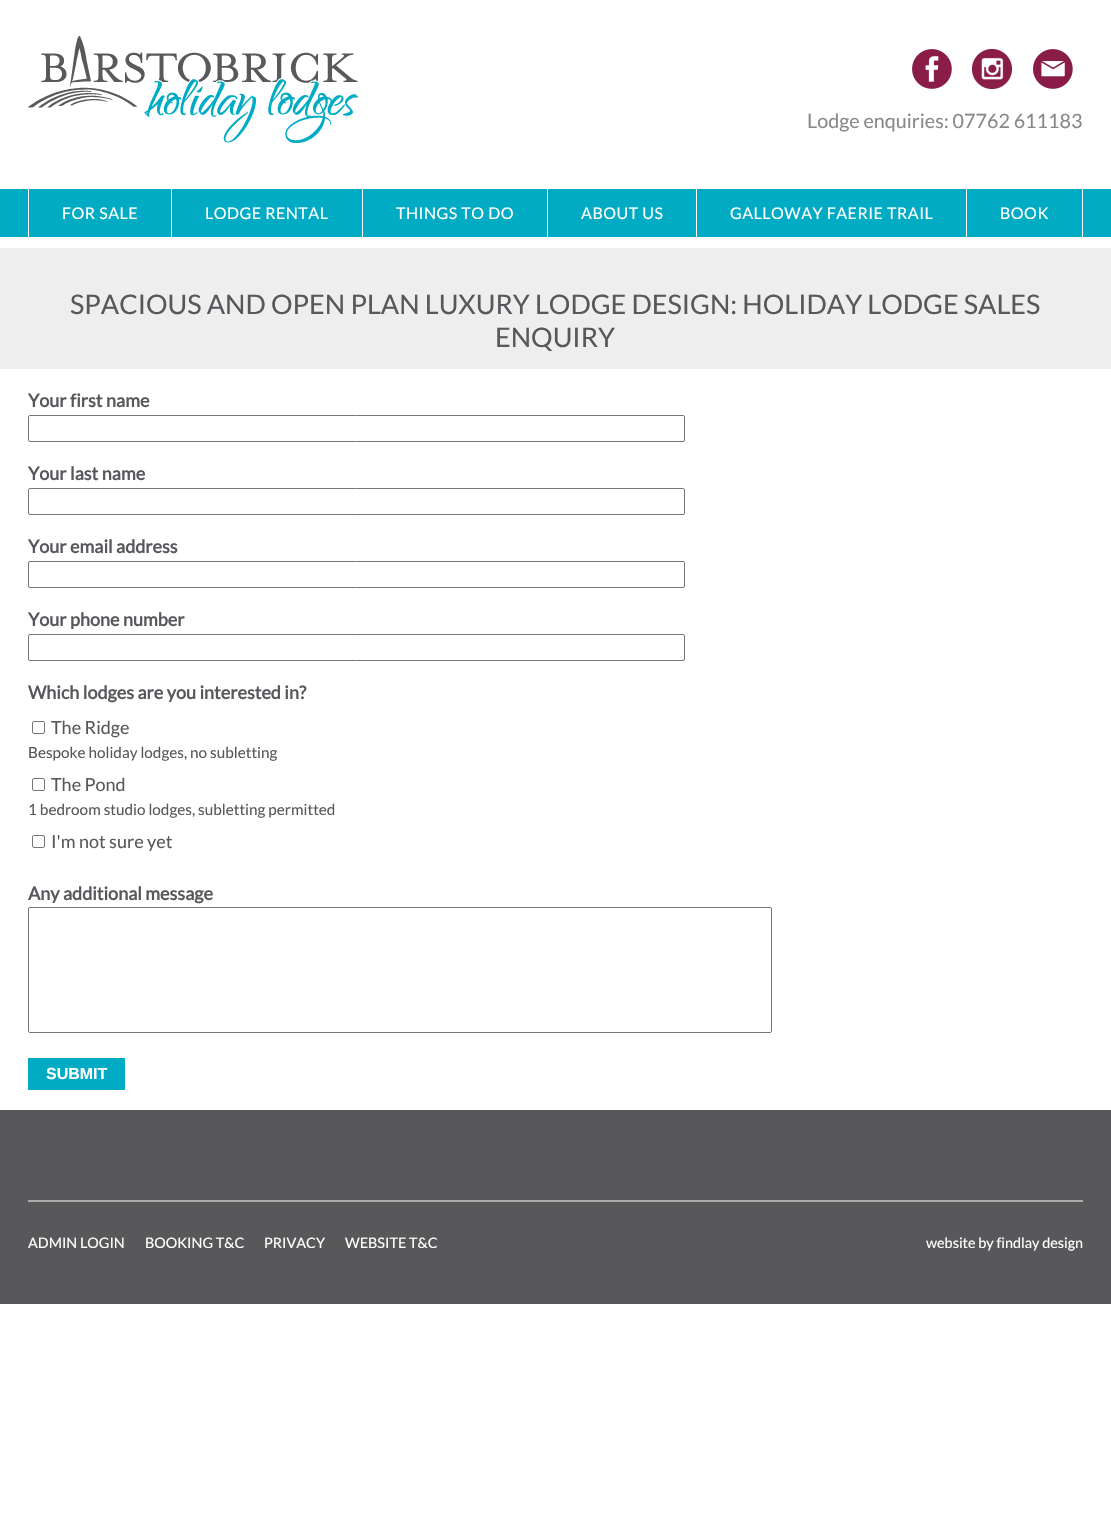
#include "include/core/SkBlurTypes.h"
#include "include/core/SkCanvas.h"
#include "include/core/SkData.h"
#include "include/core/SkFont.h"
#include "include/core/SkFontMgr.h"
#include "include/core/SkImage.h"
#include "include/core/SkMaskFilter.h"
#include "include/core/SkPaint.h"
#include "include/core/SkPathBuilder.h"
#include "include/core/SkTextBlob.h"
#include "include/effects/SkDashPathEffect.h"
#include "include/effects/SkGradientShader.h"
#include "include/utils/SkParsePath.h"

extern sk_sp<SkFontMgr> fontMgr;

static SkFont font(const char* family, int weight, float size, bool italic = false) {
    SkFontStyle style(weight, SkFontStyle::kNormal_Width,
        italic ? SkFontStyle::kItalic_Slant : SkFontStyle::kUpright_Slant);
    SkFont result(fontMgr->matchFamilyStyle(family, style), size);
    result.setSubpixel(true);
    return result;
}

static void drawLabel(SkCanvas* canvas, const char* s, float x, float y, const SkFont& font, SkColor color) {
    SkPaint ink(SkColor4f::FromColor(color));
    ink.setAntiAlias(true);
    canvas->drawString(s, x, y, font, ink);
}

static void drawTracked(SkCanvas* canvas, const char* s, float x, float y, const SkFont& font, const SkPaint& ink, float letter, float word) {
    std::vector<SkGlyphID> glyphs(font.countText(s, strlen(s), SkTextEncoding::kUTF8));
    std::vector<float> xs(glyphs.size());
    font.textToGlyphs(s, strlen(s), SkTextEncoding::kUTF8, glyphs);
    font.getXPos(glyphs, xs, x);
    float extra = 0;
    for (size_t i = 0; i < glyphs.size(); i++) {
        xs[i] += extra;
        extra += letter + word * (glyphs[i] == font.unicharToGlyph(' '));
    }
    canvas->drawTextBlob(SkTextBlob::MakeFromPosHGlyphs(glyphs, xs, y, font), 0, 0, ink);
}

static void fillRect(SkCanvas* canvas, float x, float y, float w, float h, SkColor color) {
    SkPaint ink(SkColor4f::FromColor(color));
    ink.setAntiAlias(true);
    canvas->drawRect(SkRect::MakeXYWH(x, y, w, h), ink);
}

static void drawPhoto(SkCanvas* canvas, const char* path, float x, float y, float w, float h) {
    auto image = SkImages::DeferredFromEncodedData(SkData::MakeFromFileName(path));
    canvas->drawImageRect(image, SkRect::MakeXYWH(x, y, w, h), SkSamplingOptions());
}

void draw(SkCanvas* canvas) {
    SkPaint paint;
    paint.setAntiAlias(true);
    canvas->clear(0xFFFFFFFF);
    drawPhoto(canvas, "assets/img1.png", 28, 36, 330, 107);
    drawPhoto(canvas, "assets/img2.png", 912, 49, 40, 40);
    drawPhoto(canvas, "assets/img3.png", 972, 49, 40, 40);
    drawPhoto(canvas, "assets/img4.png", 1033, 49, 40, 40);
    SkFont font1 = font("Lato", 400, 19.75f);
    drawLabel(canvas, "Lodge enquiries: 07762 611183", 807, 128, font1, 0xFF888888);
    fillRect(canvas, 0, 189, 1111, 48, 0xFF00ABC3);
    fillRect(canvas, 171, 189, 1, 48, 0xFFFFFFFF);
    fillRect(canvas, 28, 189, 1, 48, 0xFFFFFFFF);
    SkFont font2 = font("Lato", 400, 16);
    paint.setColor(0xFFFFFFFF);
    drawTracked(canvas, "FOR SALE", 62, 219, font2, paint, 0.5f, 0);
    fillRect(canvas, 362, 189, 1, 48, 0xFFFFFFFF);
    drawTracked(canvas, "LODGE RENTAL", 205, 219, font2, paint, 0.5f, 0);
    fillRect(canvas, 547, 189, 1, 48, 0xFFFFFFFF);
    drawTracked(canvas, "THINGS TO DO", 396, 219, font2, paint, 0.5f, 0);
    fillRect(canvas, 696, 189, 1, 48, 0xFFFFFFFF);
    drawTracked(canvas, "ABOUT US", 581, 219, font2, paint, 0.5f, 0);
    fillRect(canvas, 966, 189, 1, 48, 0xFFFFFFFF);
    drawTracked(canvas, "GALLOWAY FAERIE TRAIL", 730, 219, font2, paint, 0.5f, 0);
    fillRect(canvas, 1082, 189, 1, 48, 0xFFFFFFFF);
    drawTracked(canvas, "BOOK", 1000, 219, font2, paint, 0.5f, 0);
    fillRect(canvas, 0, 248, 1111, 121, 0xFFEEEEEE);
    SkFont font3 = font("Lato", 400, 27);
    drawLabel(canvas, "SPACIOUS AND OPEN PLAN LUXURY LODGE DESIGN: HOLIDAY LODGE SALES", 70, 314, font3, 0xFF56585B);
    drawLabel(canvas, "ENQUIRY", 495, 347, font3, 0xFF56585B);
    SkFont font4 = font("Lato", 700, 18);
    drawLabel(canvas, "Your first name", 28, 407, font4, 0xFF56585B);
    paint.setStroke(true);
    paint.setStrokeWidth(1);
    paint.setColor(0xFF767676);
    canvas->drawRoundRect(SkRect::MakeXYWH(28.5f, 415.5f, 656, 26), 1.5f, 1.5f, paint);
    drawLabel(canvas, "Your last name", 28, 480, font4, 0xFF56585B);
    canvas->drawRoundRect(SkRect::MakeXYWH(28.5f, 488.5f, 656, 26), 1.5f, 1.5f, paint);
    drawLabel(canvas, "Your email address", 28, 553, font4, 0xFF56585B);
    canvas->drawRoundRect(SkRect::MakeXYWH(28.5f, 561.5f, 656, 26), 1.5f, 1.5f, paint);
    drawLabel(canvas, "Your phone number", 28, 626, font4, 0xFF56585B);
    canvas->drawRoundRect(SkRect::MakeXYWH(28.5f, 634.5f, 656, 26), 1.5f, 1.5f, paint);
    drawLabel(canvas, "Which lodges are you interested in?", 28, 699, font4, 0xFF56585B);
    canvas->drawRoundRect(SkRect::MakeXYWH(32.5f, 721.5f, 12, 12), 1.5f, 1.5f, paint);
    SkFont font5 = font("Lato", 400, 18);
    drawLabel(canvas, "The Ridge", 51, 734, font5, 0xFF56585B);
    SkFont font6 = font("Lato", 400, 15.3f);
    drawLabel(canvas, "Bespoke holiday lodges, no subletting", 28, 758, font6, 0xFF56585B);
    canvas->drawRoundRect(SkRect::MakeXYWH(32.5f, 778.5f, 12, 12), 1.5f, 1.5f, paint);
    drawLabel(canvas, "The Pond", 51, 791, font5, 0xFF56585B);
    drawLabel(canvas, "1 bedroom studio lodges, subletting permitted", 28, 815, font6, 0xFF56585B);
    canvas->drawRoundRect(SkRect::MakeXYWH(32.5f, 835.5f, 12, 12), 1.5f, 1.5f, paint);
    drawLabel(canvas, "I'm not sure yet", 51, 848, font5, 0xFF56585B);
    drawLabel(canvas, "Any additional message", 28, 900, font4, 0xFF56585B);
    canvas->drawRoundRect(SkRect::MakeXYWH(28.5f, 907.5f, 743, 125), 1.5f, 1.5f, paint);
    fillRect(canvas, 28, 1058, 97, 32, 0xFF00ABC3);
    SkFont font7 = font("Liberation Sans", 700, 16);
    drawLabel(canvas, "SUBMIT", 46, 1079, font7, 0xFFFFFFFF);
    fillRect(canvas, 0, 1110, 1111, 194, 0xFF58585A);
    fillRect(canvas, 28, 1200, 1055, 2, 0xFFAAAAAA);
    SkFont font8 = font("Lato", 400, 14.4f);
    drawLabel(canvas, "ADMIN LOGIN", 28, 1248, font8, 0xFFFFFFFF);
    drawLabel(canvas, "BOOKING T&C", 145, 1248, font8, 0xFFFFFFFF);
    drawLabel(canvas, "PRIVACY", 264, 1248, font8, 0xFFFFFFFF);
    drawLabel(canvas, "WEBSITE T&C", 345, 1248, font8, 0xFFFFFFFF);
    drawLabel(canvas, "website by findlay design", 926, 1248, font8, 0xFFFFFFFF);
}
